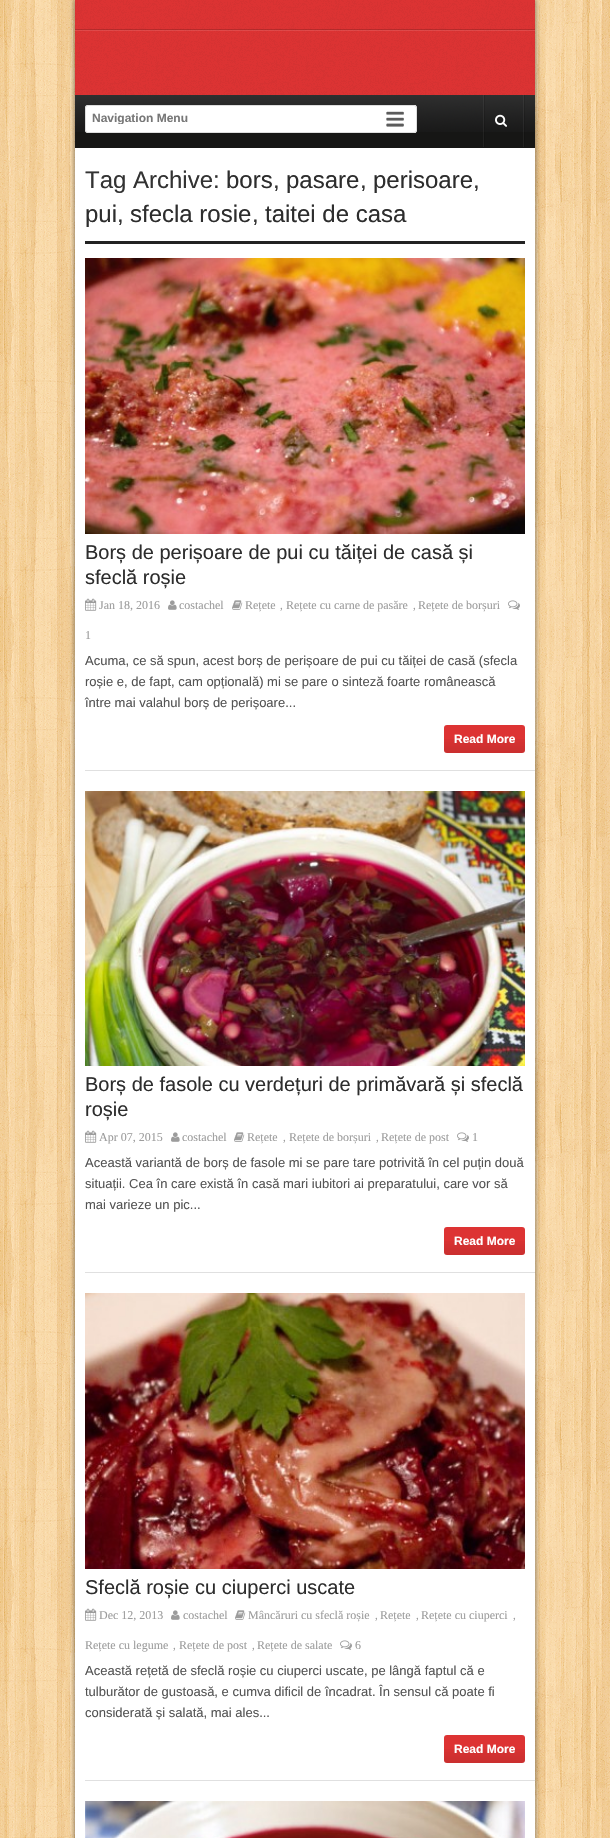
#include "include/core/SkBlurTypes.h"
#include "include/core/SkCanvas.h"
#include "include/core/SkData.h"
#include "include/core/SkFont.h"
#include "include/core/SkFontMgr.h"
#include "include/core/SkImage.h"
#include "include/core/SkMaskFilter.h"
#include "include/core/SkPaint.h"
#include "include/core/SkPathBuilder.h"
#include "include/core/SkTextBlob.h"
#include "include/effects/SkDashPathEffect.h"
#include "include/effects/SkGradientShader.h"
#include "include/utils/SkParsePath.h"

extern sk_sp<SkFontMgr> fontMgr;

static SkFont font(const char* family, int weight, float size, bool italic = false) {
    SkFontStyle style(weight, SkFontStyle::kNormal_Width,
        italic ? SkFontStyle::kItalic_Slant : SkFontStyle::kUpright_Slant);
    SkFont result(fontMgr->matchFamilyStyle(family, style), size);
    result.setSubpixel(true);
    return result;
}

static void drawLabel(SkCanvas* canvas, const char* s, float x, float y, const SkFont& font, SkColor color) {
    SkPaint ink(SkColor4f::FromColor(color));
    ink.setAntiAlias(true);
    canvas->drawString(s, x, y, font, ink);
}

static void fillRect(SkCanvas* canvas, float x, float y, float w, float h, SkColor color) {
    SkPaint ink(SkColor4f::FromColor(color));
    ink.setAntiAlias(true);
    canvas->drawRect(SkRect::MakeXYWH(x, y, w, h), ink);
}

static void fillRRect(SkCanvas* canvas, float x, float y, float w, float h, float radius, SkColor color) {
    SkPaint ink(SkColor4f::FromColor(color));
    ink.setAntiAlias(true);
    canvas->drawRoundRect(SkRect::MakeXYWH(x, y, w, h), radius, radius, ink);
}

static void drawPhoto(SkCanvas* canvas, const char* path, float x, float y, float w, float h) {
    auto image = SkImages::DeferredFromEncodedData(SkData::MakeFromFileName(path));
    canvas->drawImageRect(image, SkRect::MakeXYWH(x, y, w, h), SkSamplingOptions());
}

void draw(SkCanvas* canvas) {
    SkPaint paint;
    paint.setAntiAlias(true);
    canvas->clear(0xFFFFFFFF);
    drawPhoto(canvas, "assets/img1.png", 0, 0, 610, 1838);
    paint.setColor(0x66000000);
    paint.setMaskFilter(SkMaskFilter::MakeBlur(kNormal_SkBlurStyle, 2.5f));
    canvas->drawRect(SkRect::MakeXYWH(74, -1, 462, 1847), paint);
    paint.setMaskFilter(nullptr);
    fillRect(canvas, 75, 148, 460, 1690, 0xFFFFFFFF);
    fillRect(canvas, 75, 0, 460, 95, 0xFFDD3333);
    drawPhoto(canvas, "assets/img2.png", 75, 0, 460, 95);
    drawPhoto(canvas, "assets/img3.png", 75, 29, 460, 2);
    fillRect(canvas, 75, 132, 460, 16, 0xFF161615);
    drawPhoto(canvas, "assets/img4.png", 75, 95, 460, 37);
    fillRRect(canvas, 85, 105, 332, 28, 3, 0xFFFFFFFF);
    drawPhoto(canvas, "assets/img5.png", 386, 105, 30, 28);
    paint.setStroke(true);
    paint.setStrokeWidth(1);
    paint.setColor(0xFFDEDEDE);
    canvas->drawRoundRect(SkRect::MakeXYWH(85.5f, 105.5f, 331, 27), 2.5f, 2.5f, paint);
    canvas->save();
    canvas->clipRect(SkRect::MakeXYWH(92, 112, 361, 12));
    SkFont font1 = font("Liberation Sans", 700, 12);
    drawLabel(canvas, "Navigation Menu", 92, 122, font1, 0xFF777777);
    canvas->restore();
    drawPhoto(canvas, "assets/img6.png", 483, 95, 2, 52);
    drawPhoto(canvas, "assets/img7.png", 523, 95, 2, 52);
    drawPhoto(canvas, "assets/img8.png", 495, 114, 12, 13);
    fillRect(canvas, 85, 241, 440, 3, 0xFF222222);
    SkFont font2 = font("Liberation Sans", 400, 24);
    drawLabel(canvas, "Tag Archive:", 85, 188, font2, 0xFF333333);
    drawLabel(canvas, "bors", 226, 188, font2, 0xFF2D2D2D);
    drawLabel(canvas, ",", 273, 188, font2, 0xFF333333);
    drawLabel(canvas, "pasare", 286, 188, font2, 0xFF2D2D2D);
    drawLabel(canvas, ",", 360, 188, font2, 0xFF333333);
    drawLabel(canvas, "perisoare", 373, 188, font2, 0xFF2D2D2D);
    drawLabel(canvas, ",", 473, 188, font2, 0xFF333333);
    drawLabel(canvas, "pui", 85, 222, font2, 0xFF2D2D2D);
    drawLabel(canvas, ",", 117, 222, font2, 0xFF333333);
    drawLabel(canvas, "sfecla rosie", 130, 222, font2, 0xFF2D2D2D);
    drawLabel(canvas, ",", 252, 222, font2, 0xFF333333);
    drawLabel(canvas, "taitei de casa", 265, 222, font2, 0xFF2D2D2D);
    fillRect(canvas, 85, 770, 450, 1, 0xFFE0E0E0);
    drawPhoto(canvas, "assets/img9.png", 85, 258, 440, 276);
    SkFont font3 = font("Liberation Sans", 400, 20);
    drawLabel(canvas, "Borș de perișoare de pui cu tăiței de casă și", 85, 559, font3, 0xFF2D2D2D);
    drawLabel(canvas, "sfeclă roșie", 85, 584, font3, 0xFF2D2D2D);
    drawPhoto(canvas, "assets/img10.png", 85, 598, 12, 13);
    SkFont font4 = font("Liberation Serif", 400, 12);
    drawLabel(canvas, "Jan 18, 2016", 99, 609, font4, 0xFF9C9C9C);
    drawPhoto(canvas, "assets/img11.png", 168, 600, 9, 10);
    drawLabel(canvas, "costachel", 179, 609, font4, 0xFF9C9C9C);
    drawPhoto(canvas, "assets/img12.png", 232, 600, 11, 10);
    drawLabel(canvas, "Rețete", 245, 609, font4, 0xFF9C9C9C);
    SkFont font5 = font("Liberation Serif", 400, 11);
    drawLabel(canvas, ",", 280, 609, font5, 0xFF9C9C9C);
    drawLabel(canvas, "Rețete cu carne de pasăre", 286, 609, font4, 0xFF9C9C9C);
    drawLabel(canvas, ",", 413, 609, font5, 0xFF9C9C9C);
    drawLabel(canvas, "Rețete de borșuri", 418, 609, font4, 0xFF9C9C9C);
    drawPhoto(canvas, "assets/img13.png", 508, 600, 12, 10);
    drawLabel(canvas, "1", 85, 639, font4, 0xFF9C9C9C);
    SkFont font6 = font("Liberation Sans", 400, 13);
    drawLabel(canvas, "Acuma, ce să spun, acest borș de perișoare de pui cu tăiței de casă (sfecla", 85, 665, font6, 0xFF545454);
    drawLabel(canvas, "roșie e, de fapt, cam opțională) mi se pare o sinteză foarte românească", 85, 686, font6, 0xFF545454);
    drawLabel(canvas, "între mai valahul borș de perișoare...", 85, 707, font6, 0xFF545454);
    fillRRect(canvas, 444, 725, 81, 28, 3, 0xFFDD3333);
    drawPhoto(canvas, "assets/img14.png", 444, 739, 81, 14);
    drawLabel(canvas, "Read More", 454, 743, font1, 0xFFFFFFFF);
    fillRect(canvas, 85, 1272, 450, 1, 0xFFE0E0E0);
    drawPhoto(canvas, "assets/img15.png", 85, 791, 440, 275);
    drawLabel(canvas, "Borș de fasole cu verdețuri de primăvară și sfeclă", 85, 1091, font3, 0xFF2D2D2D);
    drawLabel(canvas, "roșie", 85, 1116, font3, 0xFF2D2D2D);
    drawPhoto(canvas, "assets/img10.png", 85, 1130, 12, 13);
    drawLabel(canvas, "Apr 07, 2015", 99, 1141, font4, 0xFF9C9C9C);
    drawPhoto(canvas, "assets/img11.png", 171, 1132, 9, 10);
    drawLabel(canvas, "costachel", 182, 1141, font4, 0xFF9C9C9C);
    drawPhoto(canvas, "assets/img12.png", 234, 1132, 11, 10);
    drawLabel(canvas, "Rețete", 247, 1141, font4, 0xFF9C9C9C);
    drawLabel(canvas, ",", 283, 1141, font5, 0xFF9C9C9C);
    drawLabel(canvas, "Rețete de borșuri", 289, 1141, font4, 0xFF9C9C9C);
    drawLabel(canvas, ",", 376, 1141, font5, 0xFF9C9C9C);
    drawLabel(canvas, "Rețete de post", 381, 1141, font4, 0xFF9C9C9C);
    drawPhoto(canvas, "assets/img13.png", 457, 1132, 12, 10);
    drawLabel(canvas, "1", 472, 1141, font4, 0xFF9C9C9C);
    drawLabel(canvas, "Această variantă de borș de fasole mi se pare tare potrivită în cel puțin două", 85, 1167, font6, 0xFF545454);
    drawLabel(canvas, "situații. Cea în care există în casă mari iubitori ai preparatului, care vor să", 85, 1188, font6, 0xFF545454);
    drawLabel(canvas, "mai varieze un pic...", 85, 1209, font6, 0xFF545454);
    fillRRect(canvas, 444, 1227, 81, 28, 3, 0xFFDD3333);
    drawPhoto(canvas, "assets/img14.png", 444, 1241, 81, 14);
    drawLabel(canvas, "Read More", 454, 1245, font1, 0xFFFFFFFF);
    fillRect(canvas, 85, 1780, 450, 1, 0xFFE0E0E0);
    drawPhoto(canvas, "assets/img16.png", 85, 1293, 440, 276);
    drawLabel(canvas, "Sfeclă roșie cu ciuperci uscate", 85, 1594, font3, 0xFF2D2D2D);
    drawPhoto(canvas, "assets/img12.png", 235, 1610, 11, 10);
    drawLabel(canvas, "Mâncăruri cu sfeclă roșie", 248, 1619, font4, 0xFF9C9C9C);
    drawLabel(canvas, ",", 375, 1619, font5, 0xFF9C9C9C);
    drawLabel(canvas, "Rețete", 380, 1619, font4, 0xFF9C9C9C);
    drawLabel(canvas, ",", 416, 1619, font5, 0xFF9C9C9C);
    drawLabel(canvas, "Rețete cu ciuperci", 421, 1619, font4, 0xFF9C9C9C);
    drawLabel(canvas, ",", 513, 1619, font5, 0xFF9C9C9C);
    drawLabel(canvas, "Rețete cu legume", 85, 1649, font4, 0xFF9C9C9C);
    drawLabel(canvas, ",", 173, 1649, font5, 0xFF9C9C9C);
    drawLabel(canvas, "Rețete de post", 179, 1649, font4, 0xFF9C9C9C);
    drawLabel(canvas, ",", 252, 1649, font5, 0xFF9C9C9C);
    drawLabel(canvas, "Rețete de salate", 257, 1649, font4, 0xFF9C9C9C);
    drawPhoto(canvas, "assets/img10.png", 85, 1608, 12, 13);
    drawLabel(canvas, "Dec 12, 2013", 99, 1619, font4, 0xFF9C9C9C);
    drawPhoto(canvas, "assets/img11.png", 171, 1610, 9, 10);
    drawLabel(canvas, "costachel", 183, 1619, font4, 0xFF9C9C9C);
    drawPhoto(canvas, "assets/img13.png", 340, 1640, 12, 10);
    drawLabel(canvas, "6", 355, 1649, font4, 0xFF9C9C9C);
    drawLabel(canvas, "Această rețetă de sfeclă roșie cu ciuperci uscate, pe lângă faptul că e", 85, 1675, font6, 0xFF545454);
    drawLabel(canvas, "tulburător de gustoasă, e cumva dificil de încadrat. În sensul că poate fi", 85, 1696, font6, 0xFF545454);
    drawLabel(canvas, "considerată și salată, mai ales...", 85, 1717, font6, 0xFF545454);
    fillRRect(canvas, 444, 1735, 81, 28, 3, 0xFFDD3333);
    drawPhoto(canvas, "assets/img14.png", 444, 1749, 81, 14);
    drawLabel(canvas, "Read More", 454, 1753, font1, 0xFFFFFFFF);
    drawPhoto(canvas, "assets/img17.png", 85, 1801, 440, 37);
}
